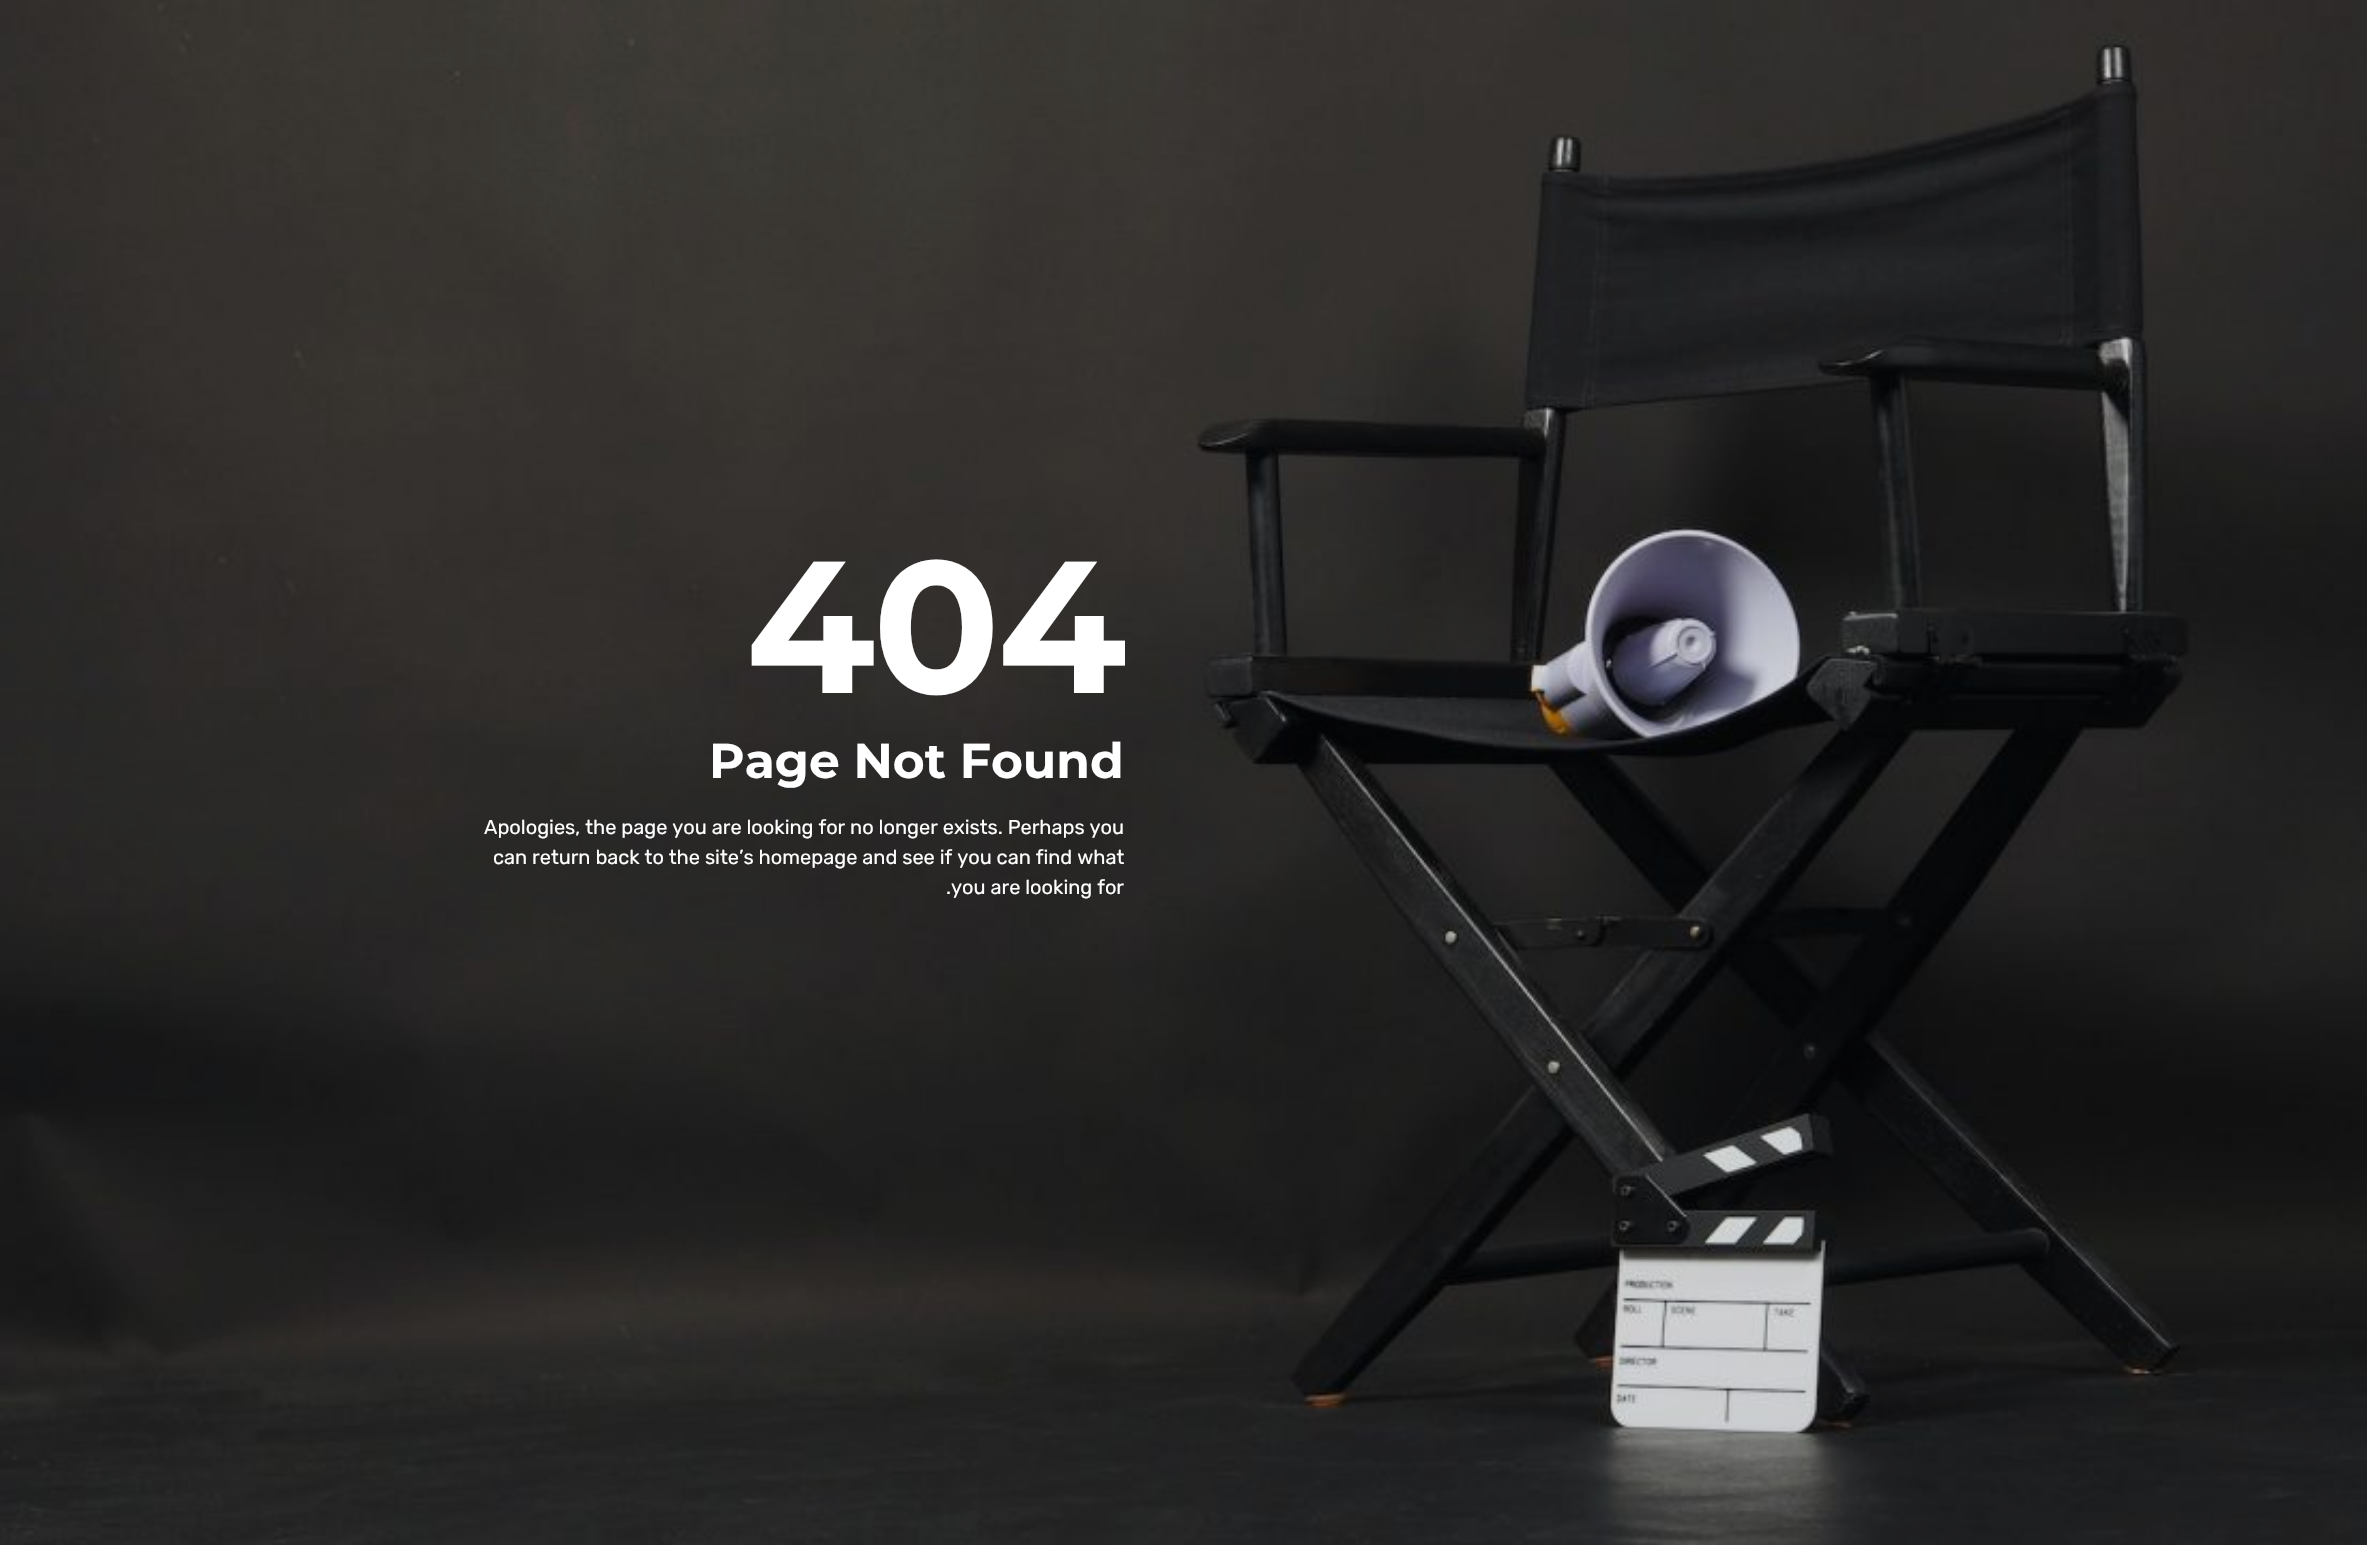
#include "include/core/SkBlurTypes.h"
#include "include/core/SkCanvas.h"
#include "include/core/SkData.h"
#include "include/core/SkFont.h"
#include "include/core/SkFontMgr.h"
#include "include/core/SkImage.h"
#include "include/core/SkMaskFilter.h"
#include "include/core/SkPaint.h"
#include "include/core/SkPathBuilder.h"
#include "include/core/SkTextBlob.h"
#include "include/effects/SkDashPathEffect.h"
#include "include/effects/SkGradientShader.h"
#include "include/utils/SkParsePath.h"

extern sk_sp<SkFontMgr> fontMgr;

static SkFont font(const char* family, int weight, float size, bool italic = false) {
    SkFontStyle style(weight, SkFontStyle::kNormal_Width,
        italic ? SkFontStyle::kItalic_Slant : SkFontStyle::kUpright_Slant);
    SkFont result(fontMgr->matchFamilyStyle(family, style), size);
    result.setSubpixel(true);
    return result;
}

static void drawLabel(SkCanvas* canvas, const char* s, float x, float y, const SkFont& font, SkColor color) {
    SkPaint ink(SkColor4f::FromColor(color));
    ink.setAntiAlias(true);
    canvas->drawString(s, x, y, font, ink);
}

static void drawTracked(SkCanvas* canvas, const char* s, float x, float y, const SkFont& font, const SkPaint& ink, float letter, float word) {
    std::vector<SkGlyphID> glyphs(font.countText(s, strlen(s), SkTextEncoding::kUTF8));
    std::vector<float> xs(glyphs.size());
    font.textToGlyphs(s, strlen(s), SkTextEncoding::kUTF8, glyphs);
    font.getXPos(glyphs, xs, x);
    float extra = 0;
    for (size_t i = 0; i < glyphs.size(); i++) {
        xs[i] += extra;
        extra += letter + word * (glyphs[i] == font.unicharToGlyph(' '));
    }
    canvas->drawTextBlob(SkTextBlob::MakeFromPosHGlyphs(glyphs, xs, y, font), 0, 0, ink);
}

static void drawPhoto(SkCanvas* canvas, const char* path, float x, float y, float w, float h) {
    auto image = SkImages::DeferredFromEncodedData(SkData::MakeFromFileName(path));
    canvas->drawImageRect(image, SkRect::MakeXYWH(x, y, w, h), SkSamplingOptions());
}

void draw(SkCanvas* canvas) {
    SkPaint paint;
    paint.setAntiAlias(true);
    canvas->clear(0xFFFFFFFF);
    drawPhoto(canvas, "assets/img1.png", 0, 0, 2367, 1545);
    SkFont font1 = font("Montserrat", 700, 187.5f);
    paint.setColor(0xFFFFFFFF);
    drawTracked(canvas, "404", 746, 693, font1, paint, -2.5f, 0);
    SkFont font2 = font("Montserrat", 700, 48.75f);
    drawLabel(canvas, "Page Not Found", 709, 778, font2, 0xFFFFFFFF);
    SkFont font3 = font("Rubik", 400, 20);
    drawLabel(canvas, "Apologies, the page you are looking for no longer exists. Perhaps you", 484, 834, font3, 0xFFFFFFFF);
    drawLabel(canvas, "can return back to the site’s homepage and see if you can find what", 493, 864, font3, 0xFFFFFFFF);
    drawLabel(canvas, ".you are looking for", 946, 894, font3, 0xFFFFFFFF);
}
